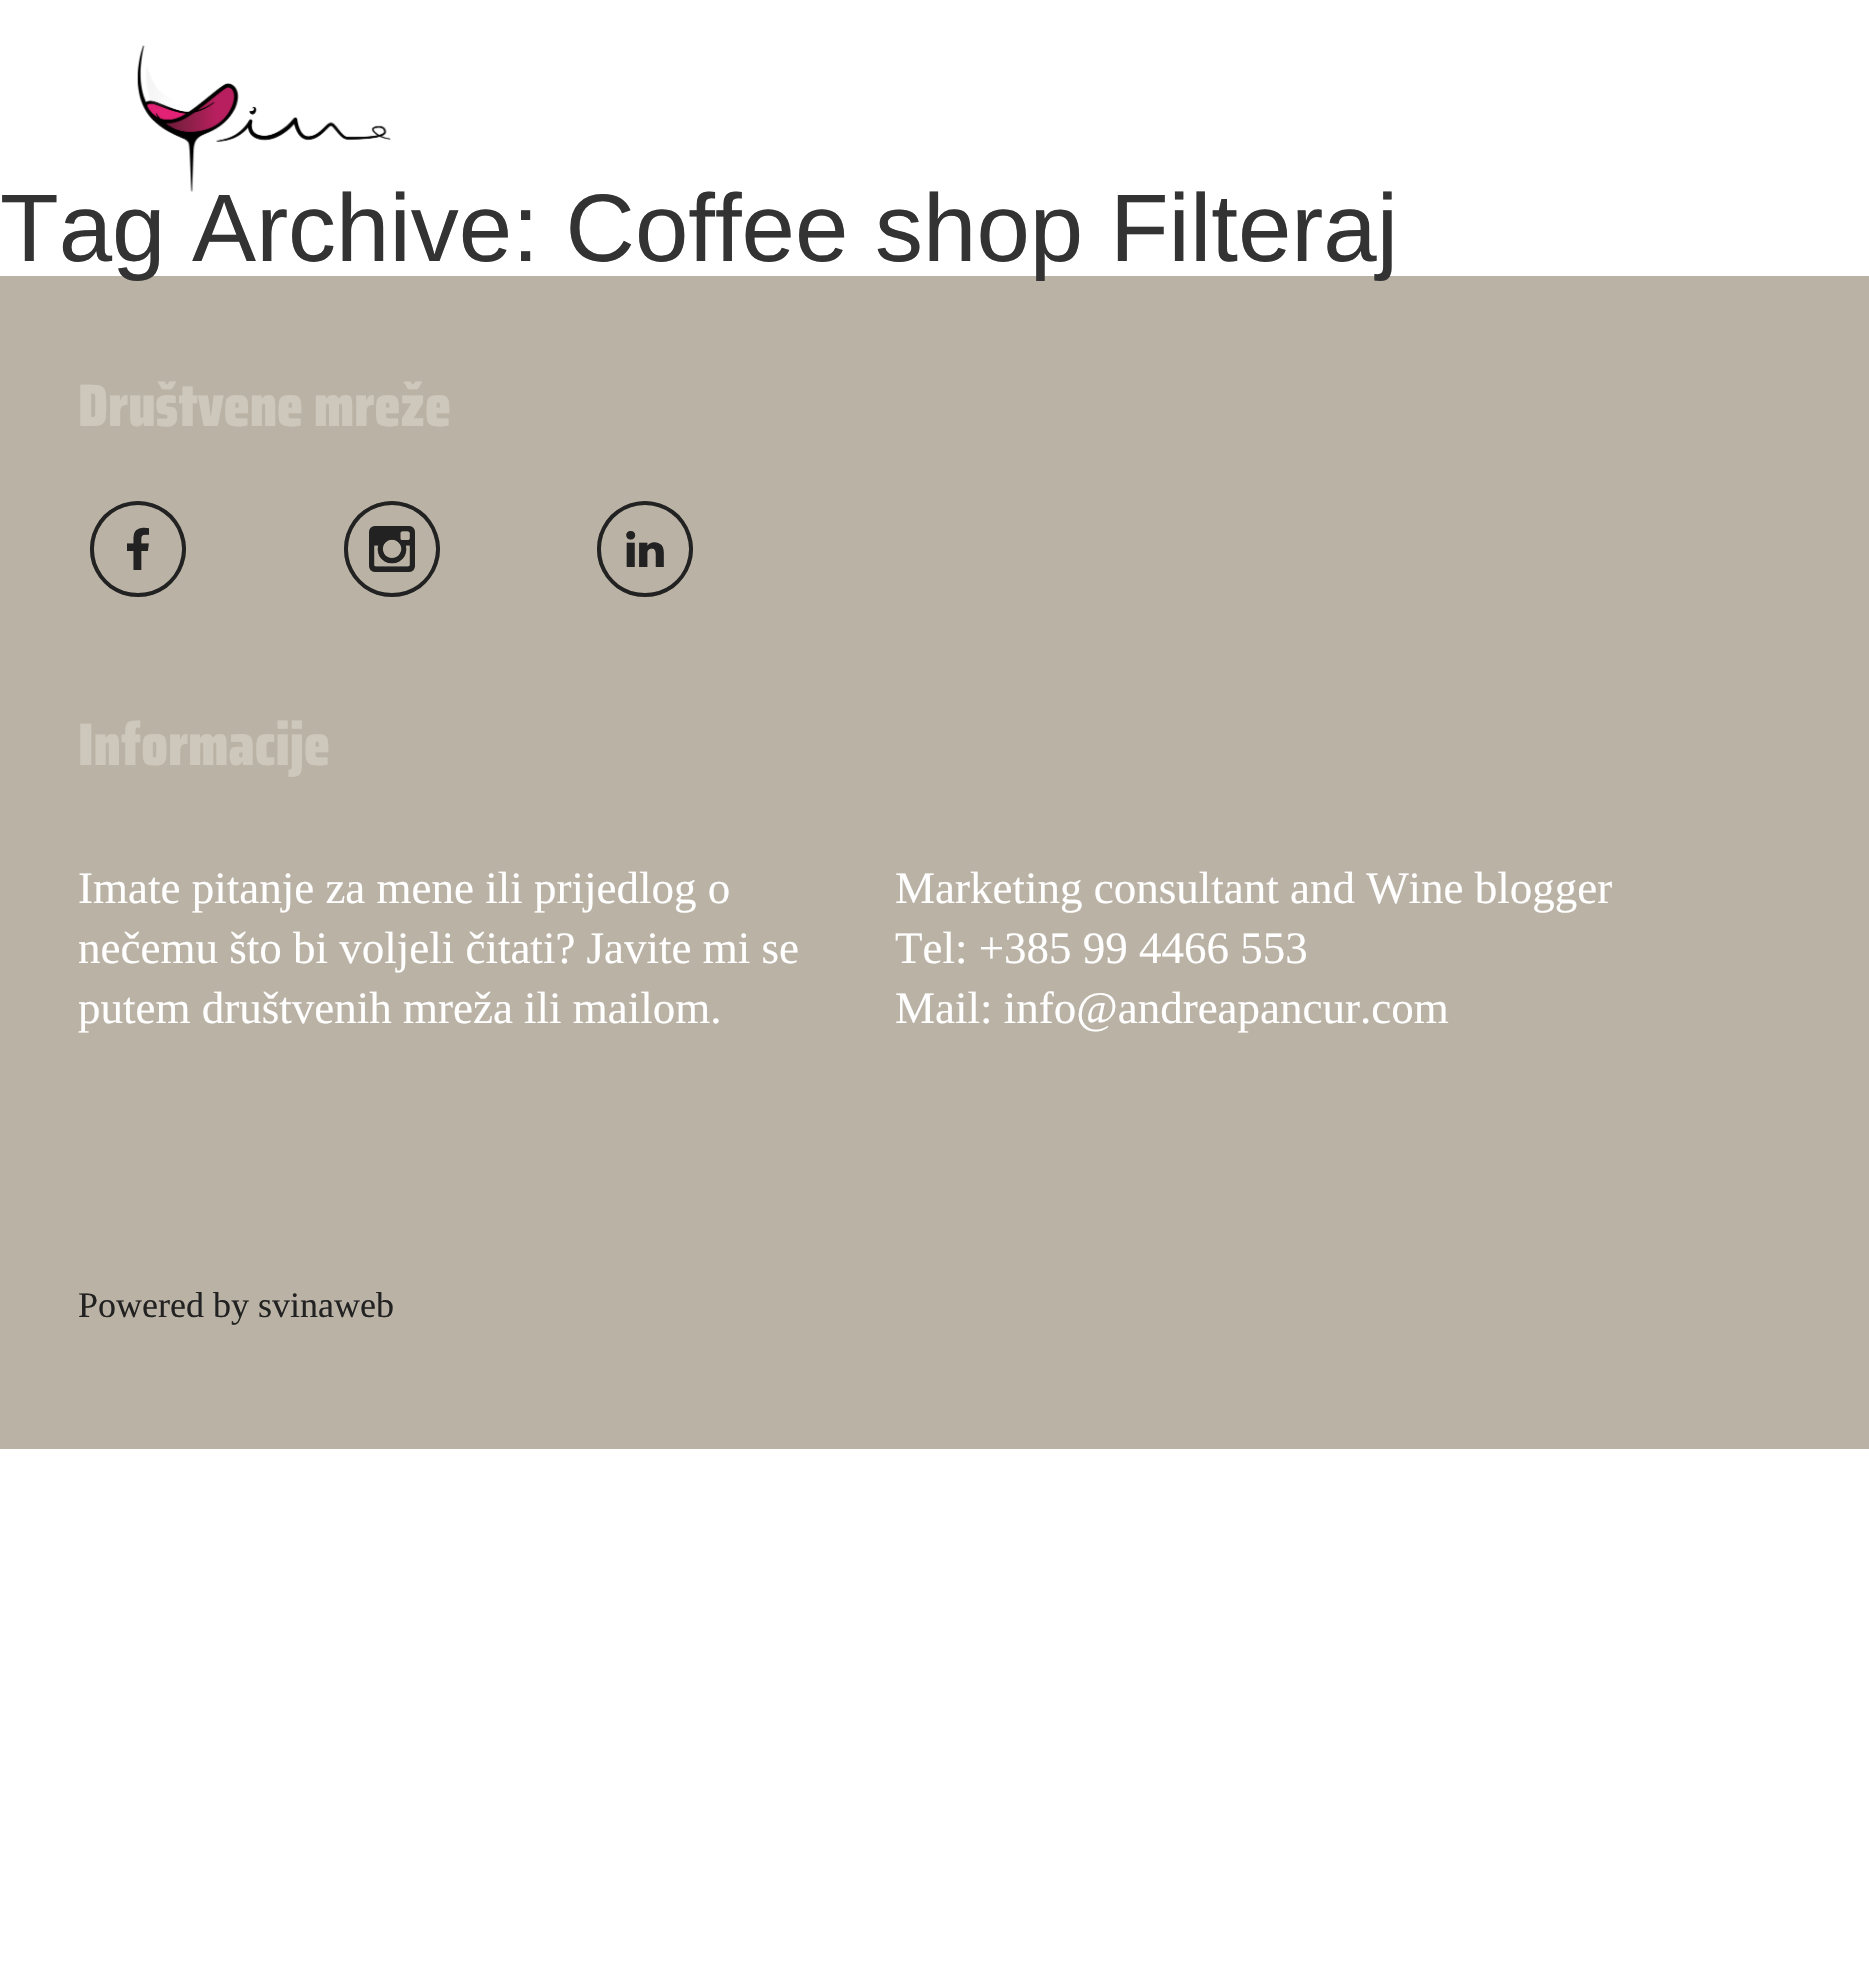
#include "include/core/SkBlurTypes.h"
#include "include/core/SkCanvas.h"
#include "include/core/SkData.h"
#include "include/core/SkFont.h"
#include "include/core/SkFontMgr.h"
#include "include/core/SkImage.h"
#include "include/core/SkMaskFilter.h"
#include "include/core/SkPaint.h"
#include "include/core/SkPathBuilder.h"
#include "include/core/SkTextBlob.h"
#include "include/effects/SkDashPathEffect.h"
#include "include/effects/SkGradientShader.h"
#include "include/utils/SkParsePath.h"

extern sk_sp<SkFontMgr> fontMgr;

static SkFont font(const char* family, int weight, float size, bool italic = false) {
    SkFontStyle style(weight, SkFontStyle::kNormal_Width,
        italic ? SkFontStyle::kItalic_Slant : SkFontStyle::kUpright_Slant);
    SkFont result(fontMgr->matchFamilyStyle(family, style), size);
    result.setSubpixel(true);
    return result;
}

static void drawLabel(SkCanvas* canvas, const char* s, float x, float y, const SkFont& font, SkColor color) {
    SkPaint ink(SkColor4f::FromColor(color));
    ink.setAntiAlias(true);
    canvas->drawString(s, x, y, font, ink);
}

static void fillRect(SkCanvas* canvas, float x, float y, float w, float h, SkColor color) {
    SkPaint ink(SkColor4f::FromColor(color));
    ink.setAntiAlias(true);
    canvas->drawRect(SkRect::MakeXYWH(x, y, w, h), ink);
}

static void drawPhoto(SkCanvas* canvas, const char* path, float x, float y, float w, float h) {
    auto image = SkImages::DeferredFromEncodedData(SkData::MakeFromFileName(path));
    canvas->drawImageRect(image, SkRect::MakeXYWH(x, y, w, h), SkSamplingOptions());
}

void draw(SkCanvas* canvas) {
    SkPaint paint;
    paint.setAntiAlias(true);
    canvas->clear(0xFFFFFFFF);
    fillRect(canvas, 0, 276, 1869, 1173, 0xFFBAB2A4);
    SkFont font1 = font("Liberation Sans", 400, 96);
    drawLabel(canvas, "Tag Archive: Coffee shop Filteraj", 0, 261, font1, 0xFF333333);
    drawPhoto(canvas, "assets/img1.png", 137, 45, 254, 147);
    SkFont font2 = font("Saira Condensed", 900, 60);
    drawLabel(canvas, "Društvene mreže", 78, 426, font2, 0xFFCEC8BC);
    SkFont font3 = font("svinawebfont", 400, 120);
    drawLabel(canvas, "k", 78, 609, font3, 0xFF222222);
    drawLabel(canvas, "o", 332, 609, font3, 0xFF222222);
    drawLabel(canvas, "p", 585, 609, font3, 0xFF222222);
    drawLabel(canvas, "Informacije", 78, 765, font2, 0xFFCEC8BC);
    SkFont font4 = font("Liberation Serif", 400, 45);
    drawLabel(canvas, "Imate pitanje za mene ili prijedlog o", 78, 903, font4, 0xFFFFFFFF);
    drawLabel(canvas, "nečemu što bi voljeli čitati? Javite mi se", 78, 963, font4, 0xFFFFFFFF);
    drawLabel(canvas, "putem društvenih mreža ili mailom.", 78, 1023, font4, 0xFFFFFFFF);
    drawLabel(canvas, "Marketing consultant and Wine blogger", 895, 903, font4, 0xFFFFFFFF);
    drawLabel(canvas, "Tel: +385 99 4466 553", 895, 963, font4, 0xFFFFFFFF);
    drawLabel(canvas, "Mail: info@andreapancur.com", 895, 1023, font4, 0xFFFFFFFF);
    SkFont font5 = font("Liberation Serif", 400, 36);
    drawLabel(canvas, "Powered by svinaweb", 78, 1317, font5, 0xFF222222);
}
